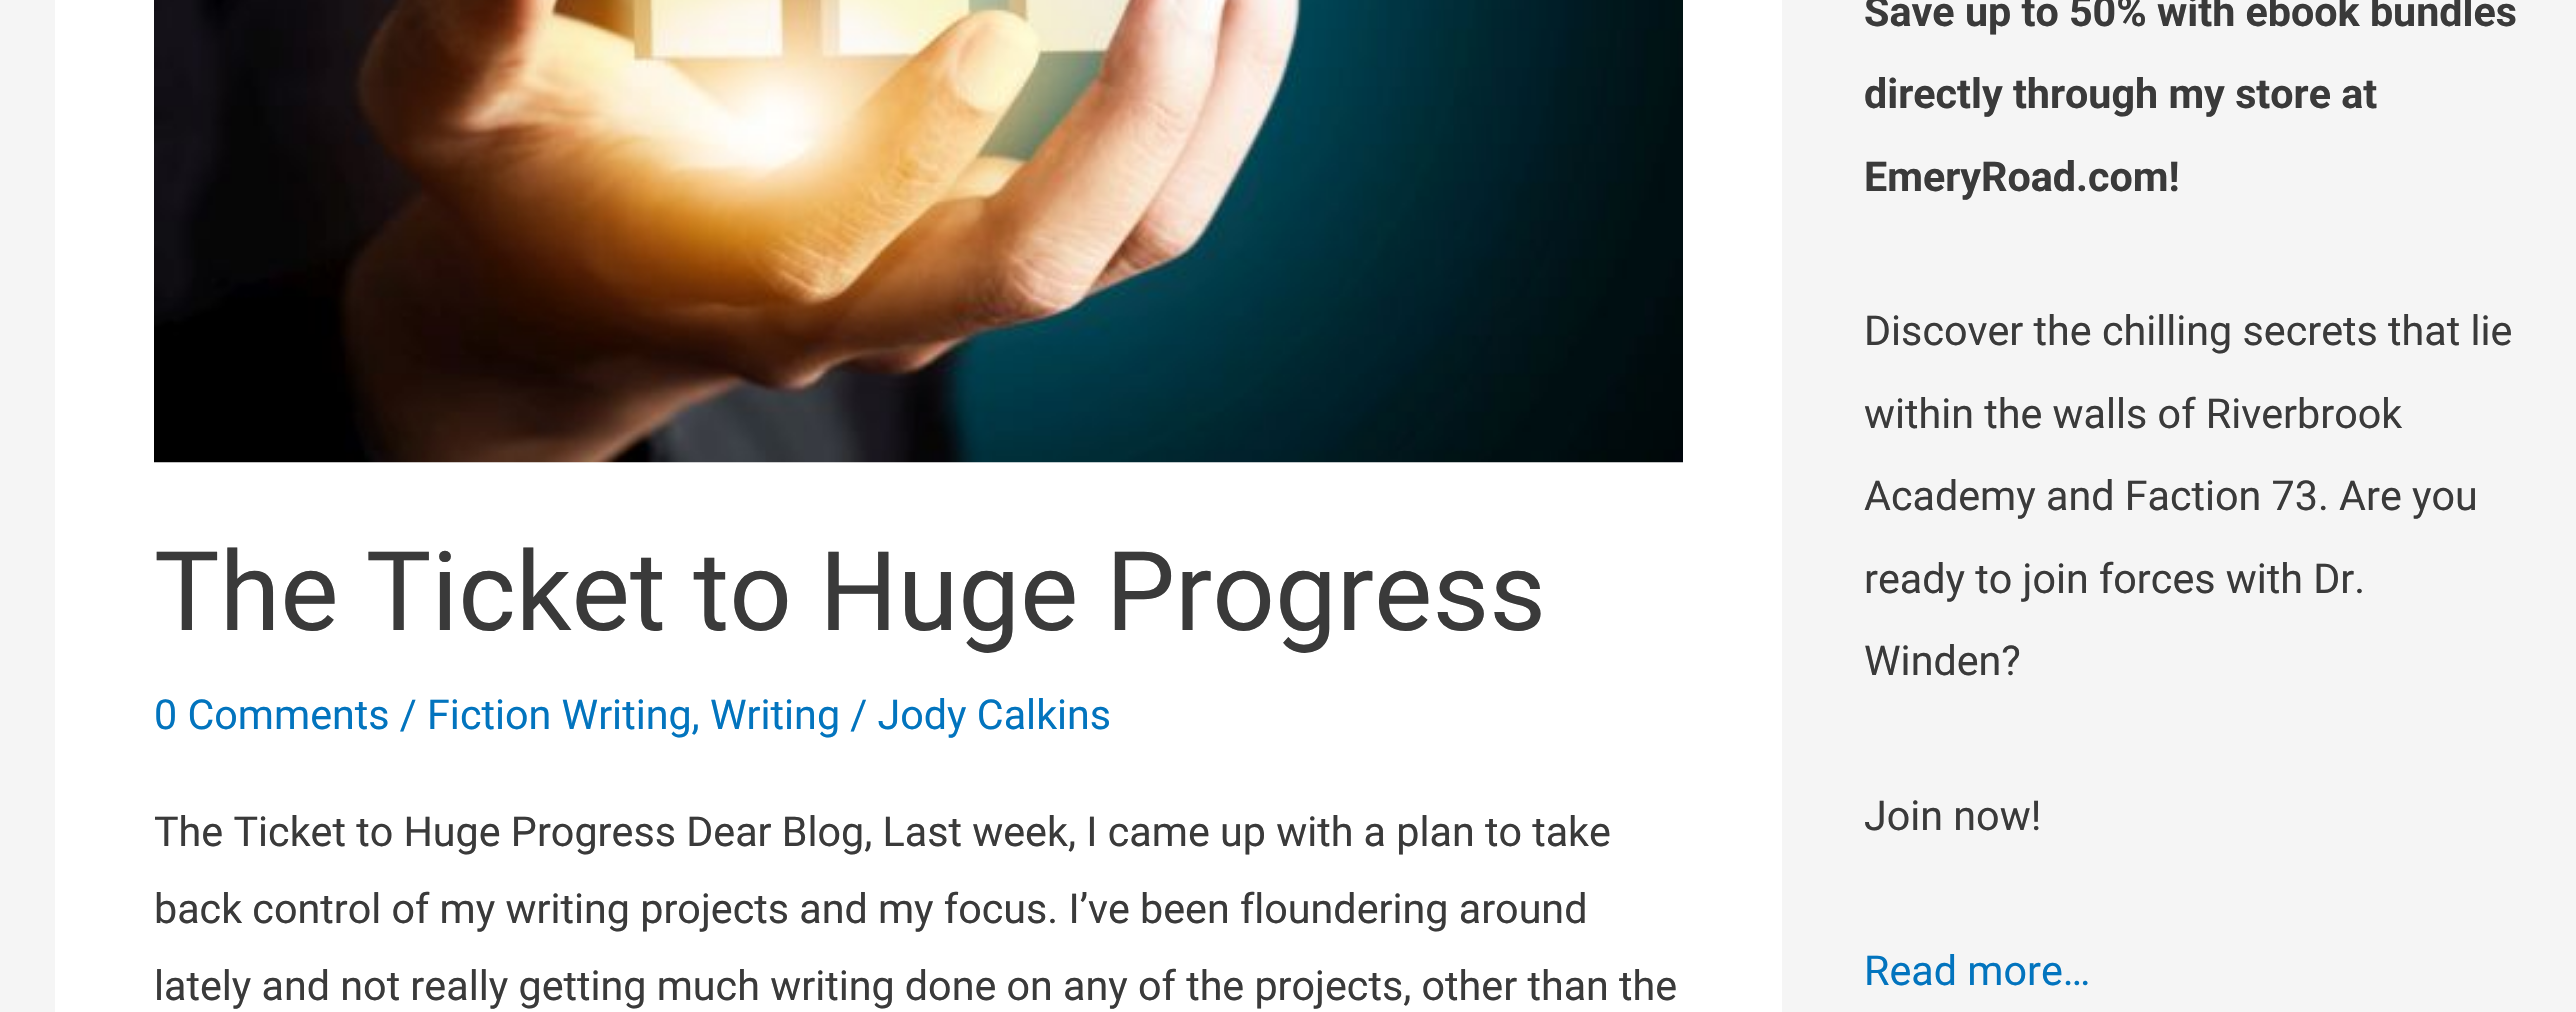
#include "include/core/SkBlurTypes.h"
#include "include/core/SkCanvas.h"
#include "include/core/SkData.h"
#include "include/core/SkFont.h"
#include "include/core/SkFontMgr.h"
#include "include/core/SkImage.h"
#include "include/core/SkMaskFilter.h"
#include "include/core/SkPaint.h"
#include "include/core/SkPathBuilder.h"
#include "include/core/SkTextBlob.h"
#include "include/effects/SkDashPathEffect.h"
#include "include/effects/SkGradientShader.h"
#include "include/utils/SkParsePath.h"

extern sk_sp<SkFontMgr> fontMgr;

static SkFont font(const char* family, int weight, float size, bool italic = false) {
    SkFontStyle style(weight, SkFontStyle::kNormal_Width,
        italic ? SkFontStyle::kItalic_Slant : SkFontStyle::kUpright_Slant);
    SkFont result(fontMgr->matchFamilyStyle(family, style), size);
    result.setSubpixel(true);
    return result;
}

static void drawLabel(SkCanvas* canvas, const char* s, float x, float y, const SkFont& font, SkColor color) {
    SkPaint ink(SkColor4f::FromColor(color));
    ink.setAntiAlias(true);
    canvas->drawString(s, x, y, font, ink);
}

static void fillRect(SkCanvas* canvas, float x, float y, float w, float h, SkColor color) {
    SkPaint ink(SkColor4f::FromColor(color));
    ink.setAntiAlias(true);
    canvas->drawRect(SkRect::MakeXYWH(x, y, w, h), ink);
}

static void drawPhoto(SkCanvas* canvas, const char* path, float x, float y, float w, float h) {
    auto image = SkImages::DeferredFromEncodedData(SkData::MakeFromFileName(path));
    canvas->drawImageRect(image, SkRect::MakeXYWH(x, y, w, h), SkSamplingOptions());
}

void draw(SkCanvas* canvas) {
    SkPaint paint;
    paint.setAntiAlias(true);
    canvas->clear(0xFFF5F5F5);
    fillRect(canvas, 55, 0, 1727, 1012, 0xFFFFFFFF);
    drawPhoto(canvas, "assets/img1.png", 154, 0, 1529, 463);
    SkFont font1 = font("Roboto", 400, 110);
    drawLabel(canvas, "The Ticket to Huge Progress", 154, 630, font1, 0xFF3A3A3A);
    SkFont font2 = font("Roboto", 400, 41.25f);
    drawLabel(canvas, "0 Comments / Fiction Writing, Writing / Jody Calkins", 154, 729, font2, 0xFF0274BE);
    drawLabel(canvas, "The Ticket to Huge Progress Dear Blog, Last week, I came up with a plan to take", 154, 846, font2, 0xFF3A3A3A);
    drawLabel(canvas, "back control of my writing projects and my focus. I’ve been floundering around", 154, 923, font2, 0xFF3A3A3A);
    drawLabel(canvas, "lately and not really getting much writing done on any of the projects, other than the", 154, 1000, font2, 0xFF3A3A3A);
    SkFont font3 = font("Roboto", 700, 41.25f);
    drawLabel(canvas, "Save up to 50% with ebook bundles", 1864, 26, font3, 0xFF3A3A3A);
    drawLabel(canvas, "directly through my store at", 1864, 108, font3, 0xFF3A3A3A);
    drawLabel(canvas, "EmeryRoad.com!", 1864, 191, font3, 0xFF3A3A3A);
    drawLabel(canvas, "Discover the chilling secrets that lie", 1864, 345, font2, 0xFF3A3A3A);
    drawLabel(canvas, "within the walls of Riverbrook", 1864, 428, font2, 0xFF3A3A3A);
    drawLabel(canvas, "Academy and Faction 73. Are you", 1864, 510, font2, 0xFF3A3A3A);
    drawLabel(canvas, "ready to join forces with Dr.", 1864, 593, font2, 0xFF3A3A3A);
    drawLabel(canvas, "Winden?", 1864, 675, font2, 0xFF3A3A3A);
    drawLabel(canvas, "Join now!", 1864, 830, font2, 0xFF3A3A3A);
    drawLabel(canvas, "Read more…", 1864, 985, font2, 0xFF0274BE);
}
